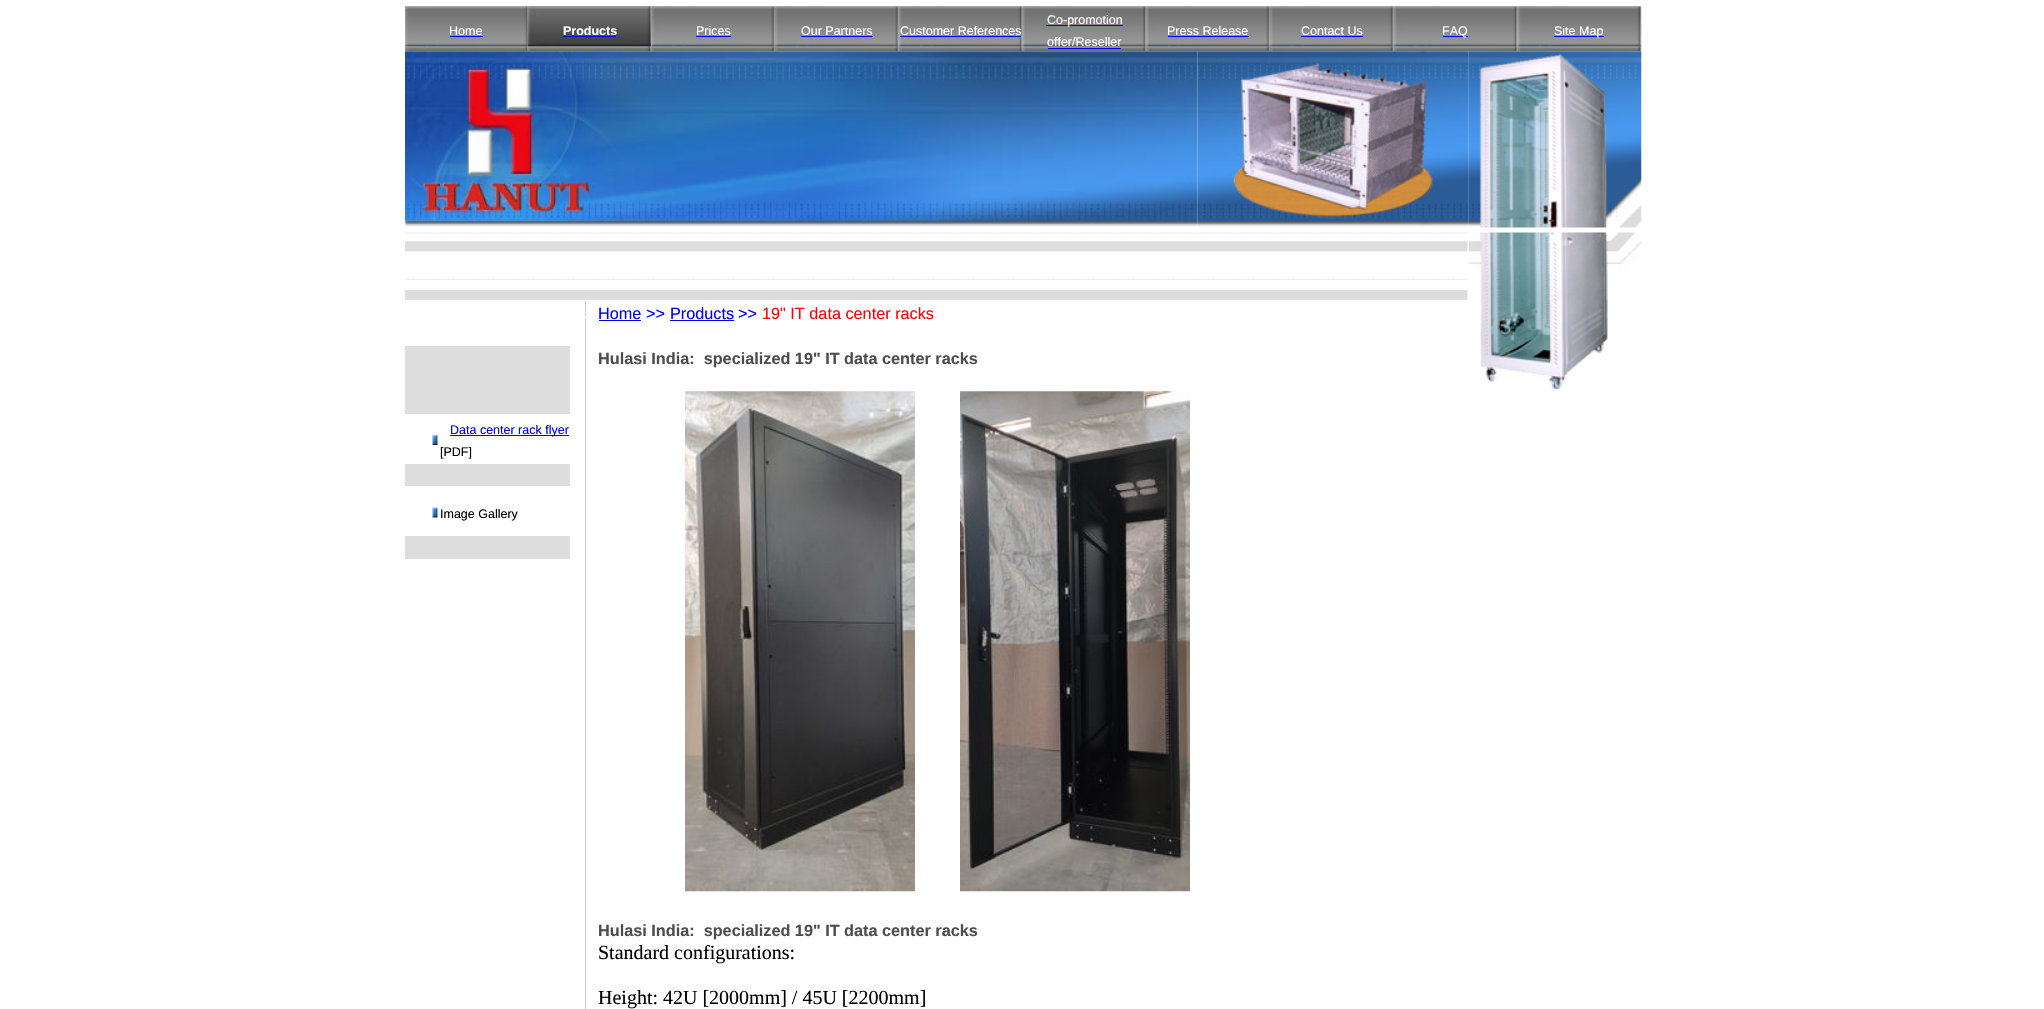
#include "include/core/SkBlurTypes.h"
#include "include/core/SkCanvas.h"
#include "include/core/SkData.h"
#include "include/core/SkFont.h"
#include "include/core/SkFontMgr.h"
#include "include/core/SkImage.h"
#include "include/core/SkMaskFilter.h"
#include "include/core/SkPaint.h"
#include "include/core/SkPathBuilder.h"
#include "include/core/SkTextBlob.h"
#include "include/effects/SkDashPathEffect.h"
#include "include/effects/SkGradientShader.h"
#include "include/utils/SkParsePath.h"

extern sk_sp<SkFontMgr> fontMgr;

static SkFont font(const char* family, int weight, float size, bool italic = false) {
    SkFontStyle style(weight, SkFontStyle::kNormal_Width,
        italic ? SkFontStyle::kItalic_Slant : SkFontStyle::kUpright_Slant);
    SkFont result(fontMgr->matchFamilyStyle(family, style), size);
    result.setSubpixel(true);
    return result;
}

static void drawLabel(SkCanvas* canvas, const char* s, float x, float y, const SkFont& font, SkColor color) {
    SkPaint ink(SkColor4f::FromColor(color));
    ink.setAntiAlias(true);
    canvas->drawString(s, x, y, font, ink);
}

static void fillRect(SkCanvas* canvas, float x, float y, float w, float h, SkColor color) {
    SkPaint ink(SkColor4f::FromColor(color));
    ink.setAntiAlias(true);
    canvas->drawRect(SkRect::MakeXYWH(x, y, w, h), ink);
}

static void drawPhoto(SkCanvas* canvas, const char* path, float x, float y, float w, float h) {
    auto image = SkImages::DeferredFromEncodedData(SkData::MakeFromFileName(path));
    canvas->drawImageRect(image, SkRect::MakeXYWH(x, y, w, h), SkSamplingOptions());
}

void draw(SkCanvas* canvas) {
    SkPaint paint;
    paint.setAntiAlias(true);
    canvas->clear(0xFFFFFFFF);
    drawPhoto(canvas, "assets/img1.png", 405, 6, 123, 46);
    SkFont font1 = font("Liberation Sans", 400, 12.5f);
    drawLabel(canvas, "Home", 449, 35, font1, 0xFFFFFFFF);
    fillRect(canvas, 450, 36, 33, 1, 0xFF0000EE);
    drawPhoto(canvas, "assets/img2.png", 527, 6, 125, 46);
    SkFont font2 = font("Liberation Sans", 700, 12.5f);
    drawLabel(canvas, "Products", 563, 35, font2, 0xFFFFFFFF);
    fillRect(canvas, 563, 36, 53, 1, 0xFF0000EE);
    drawPhoto(canvas, "assets/img3.png", 651, 6, 124, 46);
    drawLabel(canvas, "Prices", 696, 35, font1, 0xFFFFFFFF);
    fillRect(canvas, 696, 36, 35, 1, 0xFF0000EE);
    drawPhoto(canvas, "assets/img4.png", 775, 6, 124, 46);
    drawLabel(canvas, "Our Partners", 801, 35, font1, 0xFFFFFFFF);
    fillRect(canvas, 801, 36, 72, 1, 0xFF0000EE);
    drawPhoto(canvas, "assets/img5.png", 898, 6, 125, 46);
    drawLabel(canvas, "Customer References", 900, 35, font1, 0xFFFFFFFF);
    fillRect(canvas, 900, 36, 121, 1, 0xFF0000EE);
    drawPhoto(canvas, "assets/img6.png", 1022, 6, 125, 46);
    fillRect(canvas, 1046, 25, 77, 1, 0xFF0000EE);
    drawLabel(canvas, "Co-promotion", 1047, 24, font1, 0xFFFFFFFF);
    drawLabel(canvas, "offer/Reseller", 1047, 46, font1, 0xFFFFFFFF);
    fillRect(canvas, 1048, 48, 73, 1, 0xFF0000EE);
    drawPhoto(canvas, "assets/img7.png", 1146, 6, 124, 46);
    drawLabel(canvas, "Press Release", 1167, 35, font1, 0xFFFFFFFF);
    fillRect(canvas, 1168, 36, 81, 1, 0xFF0000EE);
    drawPhoto(canvas, "assets/img4.png", 1270, 6, 124, 46);
    drawLabel(canvas, "Contact Us", 1301, 35, font1, 0xFFFFFFFF);
    fillRect(canvas, 1301, 36, 62, 1, 0xFF0000EE);
    drawPhoto(canvas, "assets/img5.png", 1393, 6, 125, 46);
    fillRect(canvas, 1443, 36, 25, 1, 0xFF0000EE);
    drawLabel(canvas, "FAQ", 1442, 35, font1, 0xFFFFFFFF);
    drawPhoto(canvas, "assets/img8.png", 1517, 6, 125, 46);
    fillRect(canvas, 1554, 36, 50, 1, 0xFF0000EE);
    drawLabel(canvas, "Site Map", 1554, 35, font1, 0xFFFFFFFF);
    drawPhoto(canvas, "assets/img9.png", 405, 51, 190, 176);
    drawPhoto(canvas, "assets/img10.png", 595, 51, 250, 176);
    drawPhoto(canvas, "assets/img11.png", 845, 51, 210, 176);
    drawPhoto(canvas, "assets/img12.png", 1055, 51, 143, 176);
    drawPhoto(canvas, "assets/img13.png", 1197, 51, 272, 176);
    drawPhoto(canvas, "assets/img14.png", 1468, 51, 174, 177);
    drawPhoto(canvas, "assets/img15.png", 405, 232, 1063, 20);
    drawPhoto(canvas, "assets/img16.png", 405, 278, 1063, 22);
    fillRect(canvas, 405, 346, 165, 68, 0xFFDDDDDD);
    drawPhoto(canvas, "assets/img17.png", 432, 435, 6, 10);
    fillRect(canvas, 450, 435, 119, 1, 0xFF0000EE);
    drawLabel(canvas, "Data center rack flyer", 450, 434, font1, 0xFF0000EE);
    drawLabel(canvas, "[PDF]", 440, 456, font1, 0xFF000000);
    fillRect(canvas, 405, 464, 165, 22, 0xFFDDDDDD);
    drawPhoto(canvas, "assets/img18.png", 432, 507, 6, 11);
    drawLabel(canvas, "Image Gallery", 440, 518, font1, 0xFF000000);
    fillRect(canvas, 405, 536, 165, 23, 0xFFDDDDDD);
    fillRect(canvas, 585, 301, 1, 708, 0xFFCCCCCC);
    drawPhoto(canvas, "assets/img19.png", 585, 316, 1, 3);
    SkFont font3 = font("Liberation Sans", 400, 16.25f);
    drawLabel(canvas, "Home", 598, 319, font3, 0xFF0000EE);
    fillRect(canvas, 599, 320, 42, 1, 0xFF0000EE);
    drawLabel(canvas, ">>", 646, 319, font3, 0xFF0000FF);
    drawLabel(canvas, "Products", 670, 319, font3, 0xFF0000EE);
    fillRect(canvas, 670, 320, 64, 1, 0xFF0000EE);
    drawLabel(canvas, ">>", 738, 319, font3, 0xFF0000FF);
    drawLabel(canvas, "19\" IT data center racks", 762, 319, font3, 0xFFFF0000);
    SkFont font4 = font("Liberation Sans", 700, 16.25f);
    drawLabel(canvas, "Hulasi India:  specialized 19\" IT data center racks", 598, 364, font4, 0xFF4D4D4D);
    drawPhoto(canvas, "assets/img20.png", 685, 391, 230, 501);
    drawPhoto(canvas, "assets/img21.png", 960, 391, 230, 501);
    drawLabel(canvas, "Hulasi India:  specialized 19\" IT data center racks", 598, 936, font4, 0xFF4D4D4D);
    SkFont font5 = font("Liberation Serif", 400, 20);
    drawLabel(canvas, "Standard configurations:", 598, 959, font5, 0xFF000000);
    drawLabel(canvas, "Height: 42U [2000mm] / 45U [2200mm]", 598, 1004, font5, 0xFF000000);
    drawPhoto(canvas, "assets/img22.png", 1468, 232, 174, 160);
}
